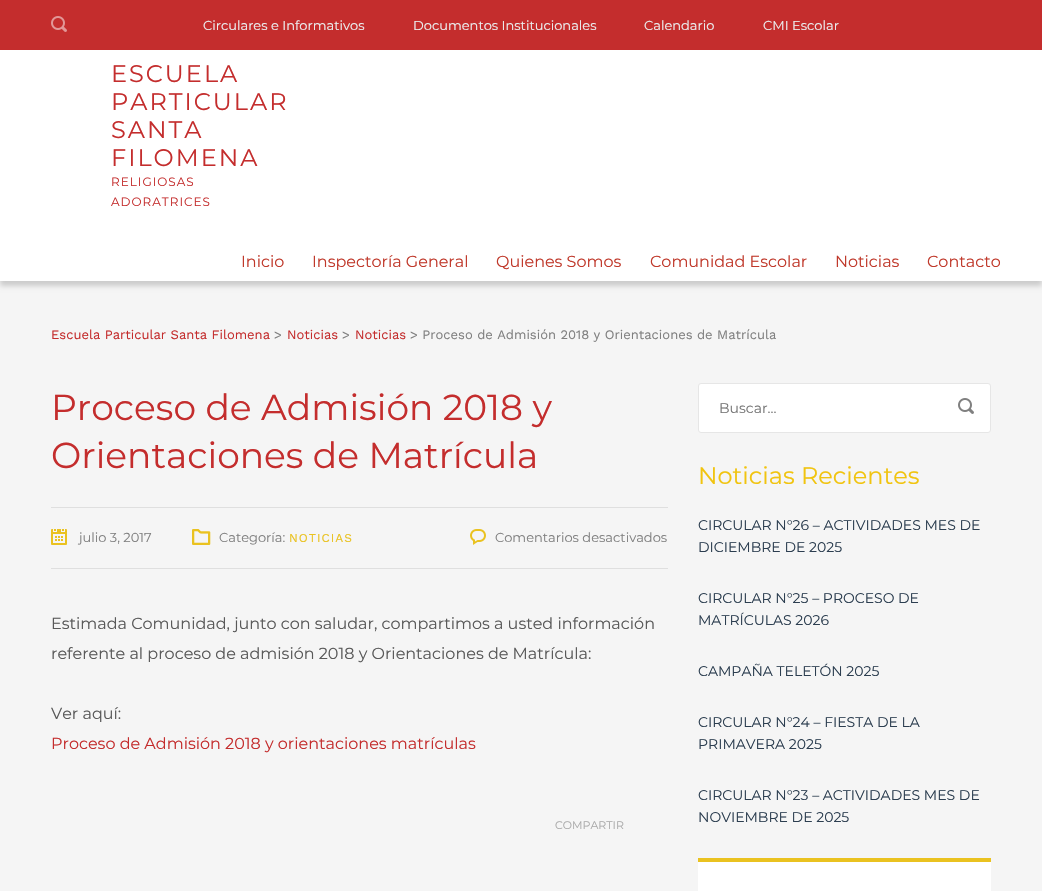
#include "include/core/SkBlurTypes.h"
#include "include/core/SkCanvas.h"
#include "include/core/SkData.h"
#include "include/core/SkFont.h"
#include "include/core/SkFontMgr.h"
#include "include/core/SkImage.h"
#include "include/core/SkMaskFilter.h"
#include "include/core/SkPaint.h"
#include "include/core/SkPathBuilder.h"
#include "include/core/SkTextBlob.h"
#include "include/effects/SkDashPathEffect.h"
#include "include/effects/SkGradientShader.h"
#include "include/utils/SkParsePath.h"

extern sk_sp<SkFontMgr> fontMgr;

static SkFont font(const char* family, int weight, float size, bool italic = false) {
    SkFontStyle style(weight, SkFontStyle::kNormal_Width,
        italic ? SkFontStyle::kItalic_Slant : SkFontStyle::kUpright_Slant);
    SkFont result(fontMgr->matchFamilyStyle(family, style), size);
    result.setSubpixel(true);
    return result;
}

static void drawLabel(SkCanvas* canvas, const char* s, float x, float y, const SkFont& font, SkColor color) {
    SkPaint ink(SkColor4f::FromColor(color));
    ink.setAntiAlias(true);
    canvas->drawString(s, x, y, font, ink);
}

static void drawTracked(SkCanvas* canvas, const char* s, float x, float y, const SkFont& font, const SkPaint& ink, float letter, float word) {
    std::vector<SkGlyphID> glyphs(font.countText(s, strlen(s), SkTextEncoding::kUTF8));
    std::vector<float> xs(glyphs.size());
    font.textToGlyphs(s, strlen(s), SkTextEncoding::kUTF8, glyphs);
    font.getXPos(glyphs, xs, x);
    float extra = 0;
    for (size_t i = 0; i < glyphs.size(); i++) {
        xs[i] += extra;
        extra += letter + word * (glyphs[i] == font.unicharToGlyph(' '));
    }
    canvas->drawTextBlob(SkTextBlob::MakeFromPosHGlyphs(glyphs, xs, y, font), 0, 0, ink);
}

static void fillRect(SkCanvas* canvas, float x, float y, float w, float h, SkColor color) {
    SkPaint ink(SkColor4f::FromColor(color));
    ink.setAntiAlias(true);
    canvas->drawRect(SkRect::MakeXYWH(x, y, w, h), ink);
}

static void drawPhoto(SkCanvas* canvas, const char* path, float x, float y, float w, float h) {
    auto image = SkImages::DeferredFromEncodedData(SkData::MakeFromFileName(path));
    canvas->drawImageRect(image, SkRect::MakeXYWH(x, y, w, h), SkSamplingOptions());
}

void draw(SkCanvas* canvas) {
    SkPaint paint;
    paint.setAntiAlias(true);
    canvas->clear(0xFFF5F5F5);
    paint.setColor(0xFFCCCCCC);
    paint.setMaskFilter(SkMaskFilter::MakeBlur(kNormal_SkBlurStyle, 2.5f));
    canvas->drawRect(SkRect::MakeXYWH(0, 5, 1042, 281), paint);
    paint.setMaskFilter(nullptr);
    fillRect(canvas, 0, 50, 1042, 231, 0xFFFFFFFF);
    fillRect(canvas, 0, 0, 1042, 50, 0xFFC42D2D);
    drawPhoto(canvas, "assets/img1.png", 51, 16, 16, 16);
    SkFont font1 = font("Montserrat", 400, 13);
    drawLabel(canvas, "Circulares e Informativos", 203, 30, font1, 0xFFECF0F1);
    drawLabel(canvas, "Documentos Institucionales", 413, 30, font1, 0xFFECF0F1);
    drawLabel(canvas, "Calendario", 644, 30, font1, 0xFFECF0F1);
    drawLabel(canvas, "CMI Escolar", 763, 30, font1, 0xFFECF0F1);
    SkFont font2 = font("Montserrat", 400, 24);
    paint.setColor(0xFFC42D2D);
    drawTracked(canvas, "ESCUELA", 111, 82, font2, paint, 2, 0);
    drawTracked(canvas, "PARTICULAR", 111, 110, font2, paint, 2, 0);
    drawTracked(canvas, "SANTA", 111, 138, font2, paint, 2, 0);
    drawTracked(canvas, "FILOMENA", 111, 166, font2, paint, 2, 0);
    SkFont font3 = font("Montserrat", 400, 12);
    drawTracked(canvas, "RELIGIOSAS", 111, 186, font3, paint, 1, 0);
    drawTracked(canvas, "ADORATRICES", 111, 206, font3, paint, 1, 0);
    SkFont font4 = font("Montserrat", 400, 16);
    drawLabel(canvas, "Inicio", 241, 267, font4, 0xFFC0392B);
    drawLabel(canvas, "Inspectoría General", 312, 267, font4, 0xFFC0392B);
    drawLabel(canvas, "Quienes Somos", 496, 267, font4, 0xFFC0392B);
    drawLabel(canvas, "Comunidad Escolar", 650, 267, font4, 0xFFC0392B);
    drawLabel(canvas, "Noticias", 835, 267, font4, 0xFFC0392B);
    drawLabel(canvas, "Contacto", 927, 267, font4, 0xFFC0392B);
    SkFont font5 = font("Work Sans", 400, 13);
    drawLabel(canvas, "Escuela Particular Santa Filomena", 51, 339, font5, 0xFFC42D2D);
    drawLabel(canvas, ">", 274, 339, font5, 0xFF808080);
    drawLabel(canvas, "Noticias", 287, 339, font5, 0xFFC42D2D);
    drawLabel(canvas, ">", 342, 339, font5, 0xFF808080);
    drawLabel(canvas, "Noticias", 355, 339, font5, 0xFFC42D2D);
    drawLabel(canvas, "> Proceso de Admisión 2018 y Orientaciones de Matrícula", 410, 339, font5, 0xFF808080);
    SkFont font6 = font("Montserrat", 400, 36);
    drawLabel(canvas, "Proceso de Admisión 2018 y", 51, 420, font6, 0xFFC42D2D);
    drawLabel(canvas, "Orientaciones de Matrícula", 51, 468, font6, 0xFFC42D2D);
    fillRect(canvas, 51, 507, 617, 1, 0xFFDFDFDF);
    fillRect(canvas, 51, 568, 617, 1, 0xFFDFDFDF);
    drawPhoto(canvas, "assets/img2.png", 51, 529, 16, 16);
    drawLabel(canvas, "julio 3, 2017", 79, 542, font1, 0xFF808080);
    drawPhoto(canvas, "assets/img3.png", 192, 529, 19, 16);
    drawLabel(canvas, "Categoría:", 219, 542, font1, 0xFF808080);
    SkFont font7 = font("Work Sans", 400, 12);
    paint.setColor(0xFFEAC220);
    drawTracked(canvas, "NOTICIAS", 289, 542, font7, paint, 1, 0);
    drawPhoto(canvas, "assets/img4.png", 470, 529, 16, 16);
    drawLabel(canvas, "Comentarios desactivados", 495, 542, font1, 0xFF808080);
    drawLabel(canvas, "Estimada Comunidad, junto con saludar, compartimos a usted información", 51, 629, font4, 0xFF595959);
    drawLabel(canvas, "referente al proceso de admisión 2018 y Orientaciones de Matrícula:", 51, 659, font4, 0xFF595959);
    drawLabel(canvas, "Ver aquí:", 51, 719, font4, 0xFF595959);
    drawLabel(canvas, "Proceso de Admisión 2018 y orientaciones matrículas", 51, 749, font4, 0xFFC42D2D);
    SkFont font8 = font("Montserrat", 400, 11);
    drawLabel(canvas, "COMPARTIR", 555, 829, font8, 0xFFAAAAAA);
    paint.setColor(0xFFFFFFFF);
    canvas->drawRoundRect(SkRect::MakeXYWH(698.5f, 383.5f, 292, 49), 2.5f, 2.5f, paint);
    paint.setStroke(true);
    paint.setStrokeWidth(1);
    paint.setColor(0xFFE6E6E6);
    canvas->drawRoundRect(SkRect::MakeXYWH(698.5f, 383.5f, 292, 49), 2.5f, 2.5f, paint);
    SkFont font9 = font("Montserrat", 400, 14);
    drawLabel(canvas, "Buscar...", 719, 413, font9, 0xFF757575);
    drawPhoto(canvas, "assets/img5.png", 958, 398, 16, 16);
    drawLabel(canvas, "Noticias Recientes", 698, 484, font2, 0xFFF1C40F);
    drawLabel(canvas, "CIRCULAR N°26 – ACTIVIDADES MES DE", 698, 530, font9, 0xFF2C3E50);
    drawLabel(canvas, "DICIEMBRE DE 2025", 698, 552, font9, 0xFF2C3E50);
    drawLabel(canvas, "CIRCULAR N°25 – PROCESO DE", 698, 603, font9, 0xFF2C3E50);
    drawLabel(canvas, "MATRÍCULAS 2026", 698, 625, font9, 0xFF2C3E50);
    drawLabel(canvas, "CAMPAÑA TELETÓN 2025", 698, 676, font9, 0xFF2C3E50);
    drawLabel(canvas, "CIRCULAR N°24 – FIESTA DE LA", 698, 727, font9, 0xFF2C3E50);
    drawLabel(canvas, "PRIMAVERA 2025", 698, 749, font9, 0xFF2C3E50);
    drawLabel(canvas, "CIRCULAR N°23 – ACTIVIDADES MES DE", 698, 800, font9, 0xFF2C3E50);
    drawLabel(canvas, "NOVIEMBRE DE 2025", 698, 822, font9, 0xFF2C3E50);
    fillRect(canvas, 698, 862, 293, 29, 0xFFFFFFFF);
    fillRect(canvas, 698, 858, 293, 4, 0xFFEAC220);
}
